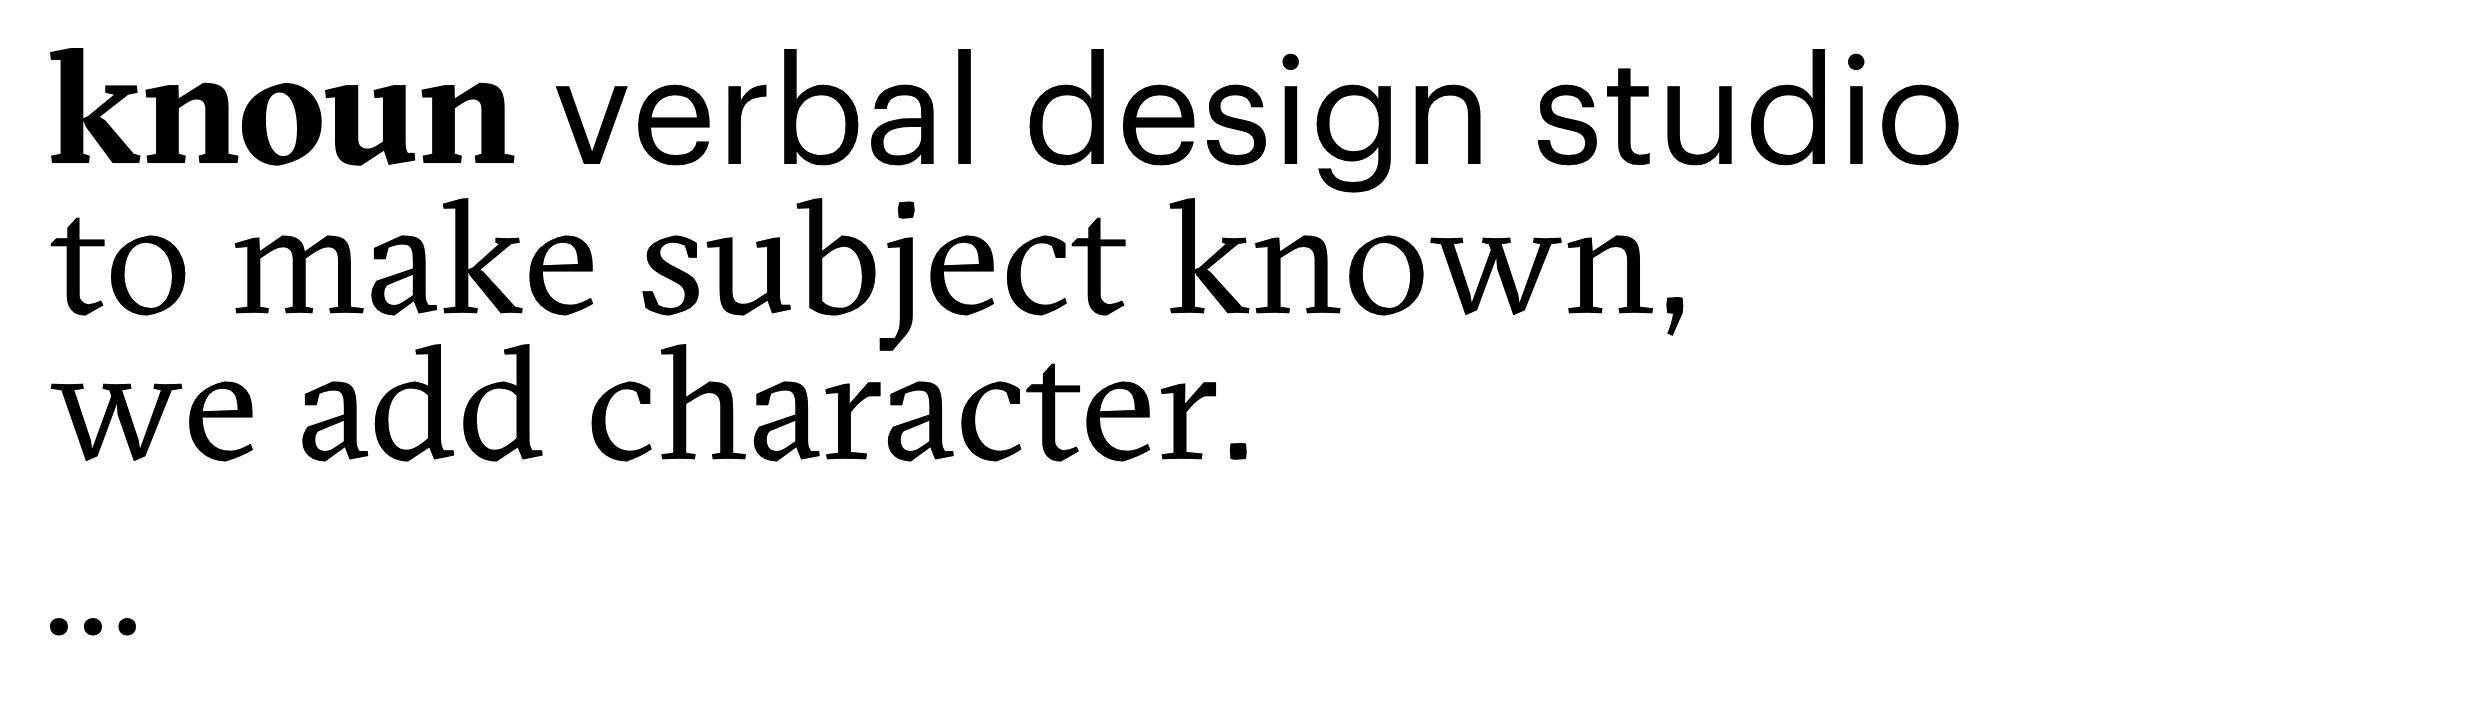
#include "include/core/SkBlurTypes.h"
#include "include/core/SkCanvas.h"
#include "include/core/SkData.h"
#include "include/core/SkFont.h"
#include "include/core/SkFontMgr.h"
#include "include/core/SkImage.h"
#include "include/core/SkMaskFilter.h"
#include "include/core/SkPaint.h"
#include "include/core/SkPathBuilder.h"
#include "include/core/SkTextBlob.h"
#include "include/effects/SkDashPathEffect.h"
#include "include/effects/SkGradientShader.h"
#include "include/utils/SkParsePath.h"

extern sk_sp<SkFontMgr> fontMgr;

static SkFont font(const char* family, int weight, float size, bool italic = false) {
    SkFontStyle style(weight, SkFontStyle::kNormal_Width,
        italic ? SkFontStyle::kItalic_Slant : SkFontStyle::kUpright_Slant);
    SkFont result(fontMgr->matchFamilyStyle(family, style), size);
    result.setSubpixel(true);
    return result;
}

static void drawLabel(SkCanvas* canvas, const char* s, float x, float y, const SkFont& font, SkColor color) {
    SkPaint ink(SkColor4f::FromColor(color));
    ink.setAntiAlias(true);
    canvas->drawString(s, x, y, font, ink);
}

static void drawPhoto(SkCanvas* canvas, const char* path, float x, float y, float w, float h) {
    auto image = SkImages::DeferredFromEncodedData(SkData::MakeFromFileName(path));
    canvas->drawImageRect(image, SkRect::MakeXYWH(x, y, w, h), SkSamplingOptions());
}

static SkPath parsePath(const char* data, bool evenOdd = false) {
    SkPath result = *SkParsePath::FromSVGString(data);
    if (evenOdd) result.setFillType(SkPathFillType::kEvenOdd);
    return result;
}

void draw(SkCanvas* canvas) {
    SkPaint paint;
    paint.setAntiAlias(true);
    canvas->clear(0xFFFFFFFF);
    drawPhoto(canvas, "assets/img1.png", 50, 48, 465, 118);
    SkFont font1 = font("Graphik", 400, 148.75f);
    drawLabel(canvas, "verbal design studio", 552, 164, font1, 0xFF000000);
    SkFont font2 = font("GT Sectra", 400, 161);
    drawLabel(canvas, "to make subject known,", 50, 313, font2, 0xFF000000);
    drawLabel(canvas, "we add character.", 50, 459, font2, 0xFF000000);
    paint.setColor(0xFF000000);
    canvas->drawPath(parsePath("M50 626.5C50 615 68 615 68 626.5C68 638.5 50 638.5 50 626.5M84 626.5C84 615 102 615 102 626.5C102 638.5 84 638.5 84 626.5", true), paint);
    canvas->drawPath(parsePath("M118.5 626.5C118.5 615 136 615 136 626.5C136 638.5 118.5 638.5 118.5 626.5", true), paint);
}
